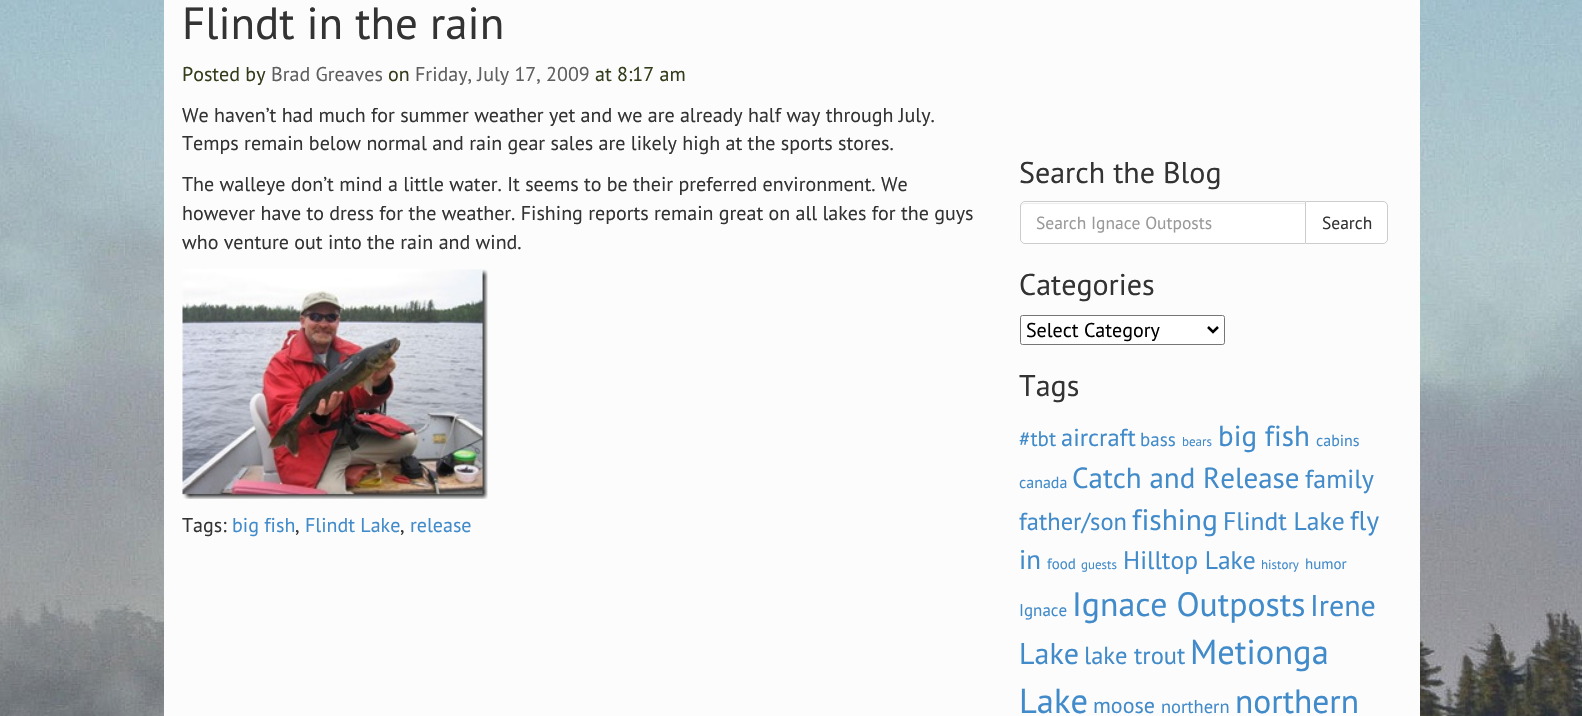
#include "include/core/SkBlurTypes.h"
#include "include/core/SkCanvas.h"
#include "include/core/SkData.h"
#include "include/core/SkFont.h"
#include "include/core/SkFontMgr.h"
#include "include/core/SkImage.h"
#include "include/core/SkMaskFilter.h"
#include "include/core/SkPaint.h"
#include "include/core/SkPathBuilder.h"
#include "include/core/SkTextBlob.h"
#include "include/effects/SkDashPathEffect.h"
#include "include/effects/SkGradientShader.h"
#include "include/utils/SkParsePath.h"

extern sk_sp<SkFontMgr> fontMgr;

static SkFont font(const char* family, int weight, float size, bool italic = false) {
    SkFontStyle style(weight, SkFontStyle::kNormal_Width,
        italic ? SkFontStyle::kItalic_Slant : SkFontStyle::kUpright_Slant);
    SkFont result(fontMgr->matchFamilyStyle(family, style), size);
    result.setSubpixel(true);
    return result;
}

static void drawLabel(SkCanvas* canvas, const char* s, float x, float y, const SkFont& font, SkColor color) {
    SkPaint ink(SkColor4f::FromColor(color));
    ink.setAntiAlias(true);
    canvas->drawString(s, x, y, font, ink);
}

static void fillRect(SkCanvas* canvas, float x, float y, float w, float h, SkColor color) {
    SkPaint ink(SkColor4f::FromColor(color));
    ink.setAntiAlias(true);
    canvas->drawRect(SkRect::MakeXYWH(x, y, w, h), ink);
}

static void drawPhoto(SkCanvas* canvas, const char* path, float x, float y, float w, float h) {
    auto image = SkImages::DeferredFromEncodedData(SkData::MakeFromFileName(path));
    canvas->drawImageRect(image, SkRect::MakeXYWH(x, y, w, h), SkSamplingOptions());
}

static SkPath parsePath(const char* data, bool evenOdd = false) {
    SkPath result = *SkParsePath::FromSVGString(data);
    if (evenOdd) result.setFillType(SkPathFillType::kEvenOdd);
    return result;
}

void draw(SkCanvas* canvas) {
    SkPaint paint;
    paint.setAntiAlias(true);
    canvas->clear(0xFFFFFFFF);
    drawPhoto(canvas, "assets/img1.png", 0, 0, 1582, 716);
    fillRect(canvas, 164, 0, 1256, 716, 0xFFFCFCFC);
    SkFont font1 = font("PT Sans", 400, 45);
    drawLabel(canvas, "Flindt in the rain", 182, 39, font1, 0xFF333333);
    SkFont font2 = font("PT Sans", 400, 20);
    drawLabel(canvas, "Posted by", 182, 81, font2, 0xFF333D1B);
    drawLabel(canvas, "Brad Greaves", 271, 81, font2, 0xFF5F5F5F);
    drawLabel(canvas, "on", 388, 81, font2, 0xFF333D1B);
    drawLabel(canvas, "Friday, July 17, 2009", 415, 81, font2, 0xFF5F5F5F);
    drawLabel(canvas, "at 8:17 am", 595, 81, font2, 0xFF333D1B);
    drawLabel(canvas, "We haven’t had much for summer weather yet and we are already half way through July.", 182, 122, font2, 0xFF333333);
    drawLabel(canvas, "Temps remain below normal and rain gear sales are likely high at the sports stores.", 182, 150, font2, 0xFF333333);
    drawLabel(canvas, "The walleye don’t mind a little water. It seems to be their preferred environment. We", 182, 191, font2, 0xFF333333);
    drawLabel(canvas, "however have to dress for the weather. Fishing reports remain great on all lakes for the guys", 182, 220, font2, 0xFF333333);
    drawLabel(canvas, "who venture out into the rain and wind.", 182, 249, font2, 0xFF333333);
    drawPhoto(canvas, "assets/img2.png", 182, 269, 306, 230);
    drawLabel(canvas, "Tags:", 182, 532, font2, 0xFF333333);
    drawLabel(canvas, "big fish", 232, 532, font2, 0xFF428BCA);
    drawLabel(canvas, ",", 295, 532, font2, 0xFF333333);
    drawLabel(canvas, "Flindt Lake", 305, 532, font2, 0xFF428BCA);
    drawLabel(canvas, ",", 400, 532, font2, 0xFF333333);
    drawLabel(canvas, "release", 410, 532, font2, 0xFF428BCA);
    SkFont font3 = font("PT Sans", 400, 30);
    drawLabel(canvas, "Search the Blog", 1019, 183, font3, 0xFF333333);
    paint.setColor(0xFFFFFFFF);
    canvas->drawPath(parsePath("M1305.5 201.5H1383C1385.5 201.5 1387.5 203.5 1387.5 206V239C1387.5 241.5 1385.5 243.5 1383 243.5H1305.5Z"), paint);
    paint.setStroke(true);
    paint.setStrokeWidth(1);
    paint.setColor(0xFFCCCCCC);
    canvas->drawPath(parsePath("M1305.5 201.5H1383C1385.5 201.5 1387.5 203.5 1387.5 206V239C1387.5 241.5 1385.5 243.5 1383 243.5H1305.5Z"), paint);
    paint.setStroke(false);
    paint.setColor(0xFFFFFFFF);
    canvas->drawPath(parsePath("M1025 201H1306V244H1025C1022 244 1020 242 1020 239V206C1020 203 1022 201 1025 201Z"), paint);
    paint.setColor(0xFFECECEC);
    canvas->drawPath(parsePath("M1025 204H1305V203H1025C1022 203 1021 205 1021 208C1021 205 1023 204 1025 204Z"), paint);
    paint.setStroke(true);
    paint.setColor(0xFFCCCCCC);
    canvas->drawPath(parsePath("M1025 201.5H1305.5V243.5H1025C1022.5 243.5 1020.5 241.5 1020.5 239V206C1020.5 203.5 1022.5 201.5 1025 201.5Z"), paint);
    SkFont font4 = font("PT Sans", 400, 17.5f);
    drawLabel(canvas, "Search Ignace Outposts", 1036, 229, font4, 0xFF999999);
    drawLabel(canvas, "Search", 1322, 229, font4, 0xFF333333);
    drawLabel(canvas, "Categories", 1019, 295, font3, 0xFF333333);
    paint.setStroke(false);
    paint.setColor(0xFFFFFFFF);
    canvas->drawRoundRect(SkRect::MakeXYWH(1020.5f, 315.5f, 204, 29), 2, 2, paint);
    paint.setStroke(true);
    paint.setColor(0xFF767676);
    canvas->drawRoundRect(SkRect::MakeXYWH(1020.5f, 315.5f, 204, 29), 2, 2, paint);
    paint.setStrokeWidth(2.5f);
    paint.setColor(0xFF000000);
    canvas->drawPath(parsePath("M1208 327L1213 332L1218 327"), paint);
    drawLabel(canvas, "Select Category", 1026, 337, font2, 0xFF000000);
    drawLabel(canvas, "Tags", 1019, 396, font3, 0xFF333333);
    SkFont font5 = font("PT Sans", 400, 21);
    drawLabel(canvas, "#tbt", 1019, 446, font5, 0xFF428BCA);
    SkFont font6 = font("PT Sans", 400, 24.5f);
    drawLabel(canvas, "aircraft", 1061, 446, font6, 0xFF428BCA);
    SkFont font7 = font("PT Sans", 400, 19);
    drawLabel(canvas, "bass", 1140, 446, font7, 0xFF428BCA);
    SkFont font8 = font("PT Sans", 400, 13);
    drawLabel(canvas, "bears", 1182, 446, font8, 0xFF428BCA);
    SkFont font9 = font("PT Sans", 400, 29);
    drawLabel(canvas, "big fish", 1218, 446, font9, 0xFF428BCA);
    SkFont font10 = font("PT Sans", 400, 16);
    drawLabel(canvas, "cabins", 1316, 446, font10, 0xFF428BCA);
    drawLabel(canvas, "canada", 1019, 488, font10, 0xFF428BCA);
    drawLabel(canvas, "Catch and Release", 1072, 488, font9, 0xFF428BCA);
    SkFont font11 = font("PT Sans", 400, 26);
    drawLabel(canvas, "family", 1305, 488, font11, 0xFF428BCA);
    drawLabel(canvas, "father/son", 1019, 530, font6, 0xFF428BCA);
    SkFont font12 = font("PT Sans", 400, 29.5f);
    drawLabel(canvas, "fishing", 1132, 530, font12, 0xFF428BCA);
    SkFont font13 = font("PT Sans", 400, 25.5f);
    drawLabel(canvas, "Flindt Lake", 1223, 530, font13, 0xFF428BCA);
    SkFont font14 = font("PT Sans", 400, 27);
    drawLabel(canvas, "fly", 1350, 530, font14, 0xFF428BCA);
    drawLabel(canvas, "in", 1019, 569, font14, 0xFF428BCA);
    SkFont font15 = font("PT Sans", 400, 15);
    drawLabel(canvas, "food", 1047, 569, font15, 0xFF428BCA);
    drawLabel(canvas, "guests", 1081, 569, font8, 0xFF428BCA);
    drawLabel(canvas, "Hilltop Lake", 1123, 569, font13, 0xFF428BCA);
    drawLabel(canvas, "history", 1261, 569, font8, 0xFF428BCA);
    drawLabel(canvas, "humor", 1305, 569, font15, 0xFF428BCA);
    SkFont font16 = font("PT Sans", 400, 17);
    drawLabel(canvas, "Ignace", 1019, 616, font16, 0xFF428BCA);
    SkFont font17 = font("PT Sans", 400, 33.75f);
    drawLabel(canvas, "Ignace Outposts", 1072, 616, font17, 0xFF428BCA);
    drawLabel(canvas, "Irene", 1310, 616, font3, 0xFF428BCA);
    drawLabel(canvas, "Lake", 1019, 664, font3, 0xFF428BCA);
    drawLabel(canvas, "lake trout", 1084, 664, font6, 0xFF428BCA);
    SkFont font18 = font("PT Sans", 400, 34.5f);
    drawLabel(canvas, "Metionga", 1190, 664, font18, 0xFF428BCA);
    drawLabel(canvas, "Lake", 1019, 713, font18, 0xFF428BCA);
    SkFont font19 = font("PT Sans", 400, 22);
    drawLabel(canvas, "moose", 1093, 713, font19, 0xFF428BCA);
    SkFont font20 = font("PT Sans", 400, 18.5f);
    drawLabel(canvas, "northern", 1161, 713, font20, 0xFF428BCA);
    SkFont font21 = font("PT Sans", 400, 33.5f);
    drawLabel(canvas, "northern", 1235, 713, font21, 0xFF428BCA);
}
